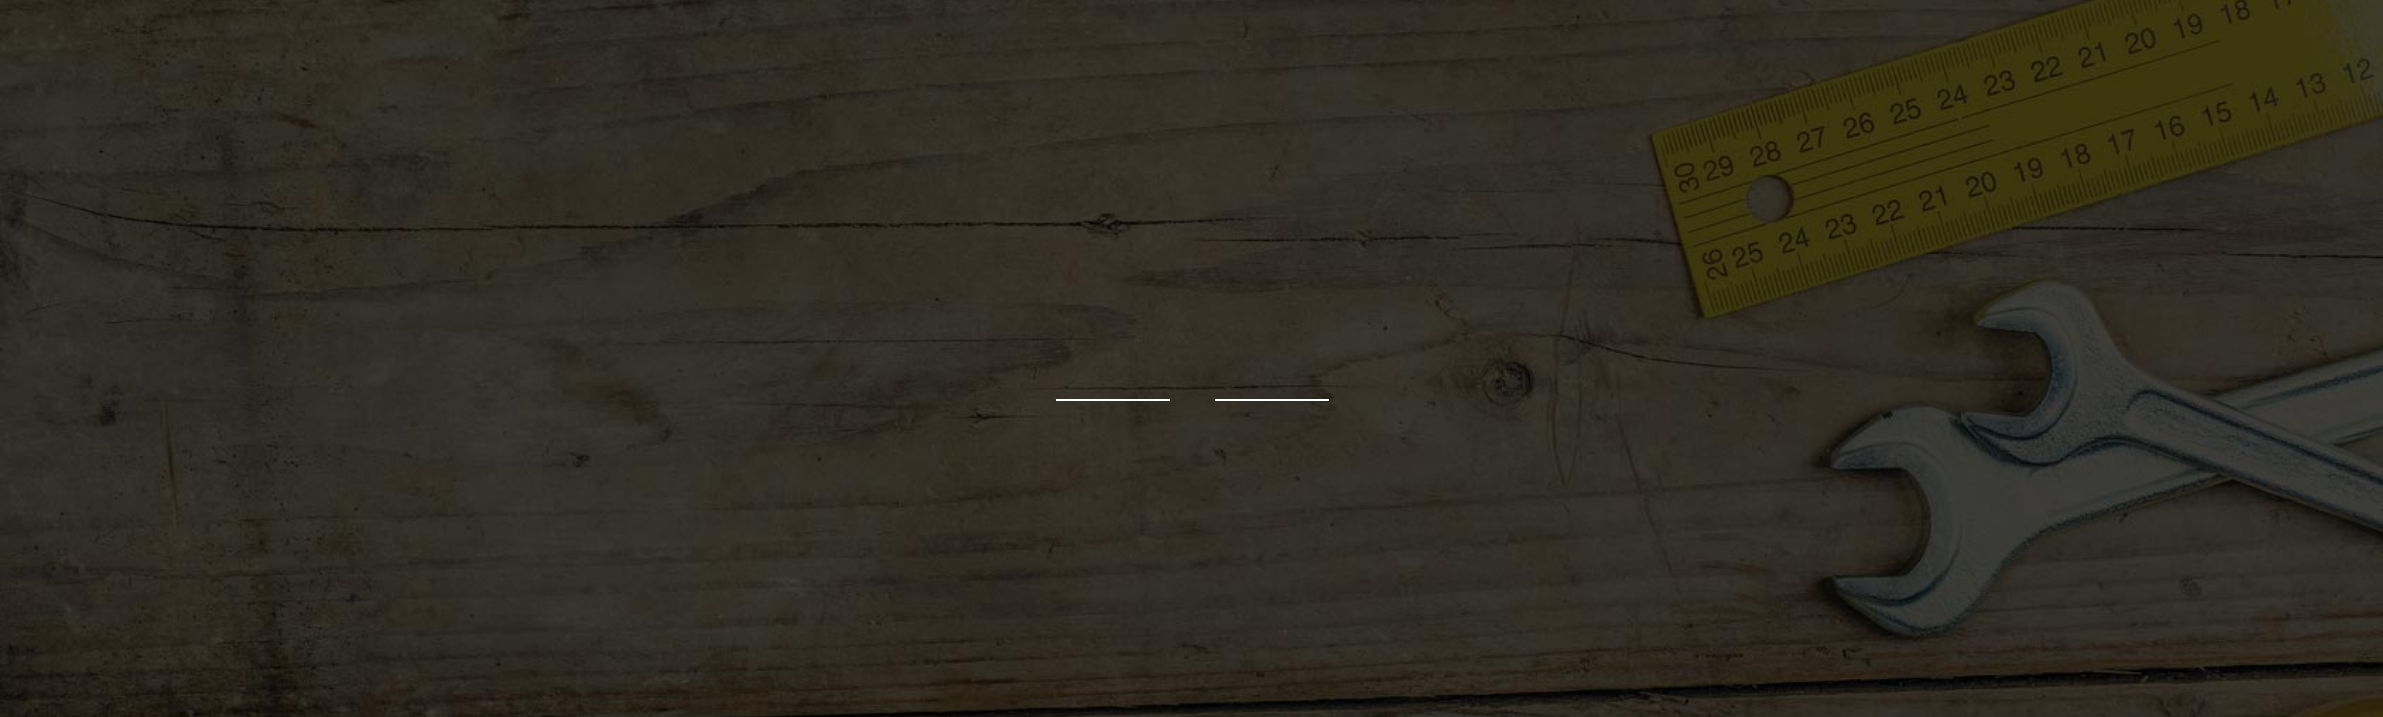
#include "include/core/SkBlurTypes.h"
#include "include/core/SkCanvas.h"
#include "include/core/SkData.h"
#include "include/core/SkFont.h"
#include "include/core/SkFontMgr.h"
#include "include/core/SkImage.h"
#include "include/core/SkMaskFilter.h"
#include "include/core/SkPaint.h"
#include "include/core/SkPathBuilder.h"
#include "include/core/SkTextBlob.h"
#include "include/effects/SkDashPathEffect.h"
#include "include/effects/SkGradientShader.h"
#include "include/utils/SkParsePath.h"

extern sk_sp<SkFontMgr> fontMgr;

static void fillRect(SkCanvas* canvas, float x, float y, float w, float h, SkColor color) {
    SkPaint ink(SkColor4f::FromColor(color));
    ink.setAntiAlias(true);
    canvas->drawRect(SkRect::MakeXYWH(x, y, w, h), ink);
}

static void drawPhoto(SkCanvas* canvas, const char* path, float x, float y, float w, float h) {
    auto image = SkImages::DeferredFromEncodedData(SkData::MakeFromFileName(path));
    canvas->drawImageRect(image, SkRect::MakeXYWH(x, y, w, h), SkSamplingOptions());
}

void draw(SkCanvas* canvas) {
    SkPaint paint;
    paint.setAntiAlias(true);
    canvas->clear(0xFFFFFFFF);
    drawPhoto(canvas, "assets/img1.png", 0, 0, 2383, 717);
    fillRect(canvas, 1056, 399, 114, 2, 0xFFFFFFFF);
    fillRect(canvas, 1215, 399, 114, 2, 0xFFFFFFFF);
}
